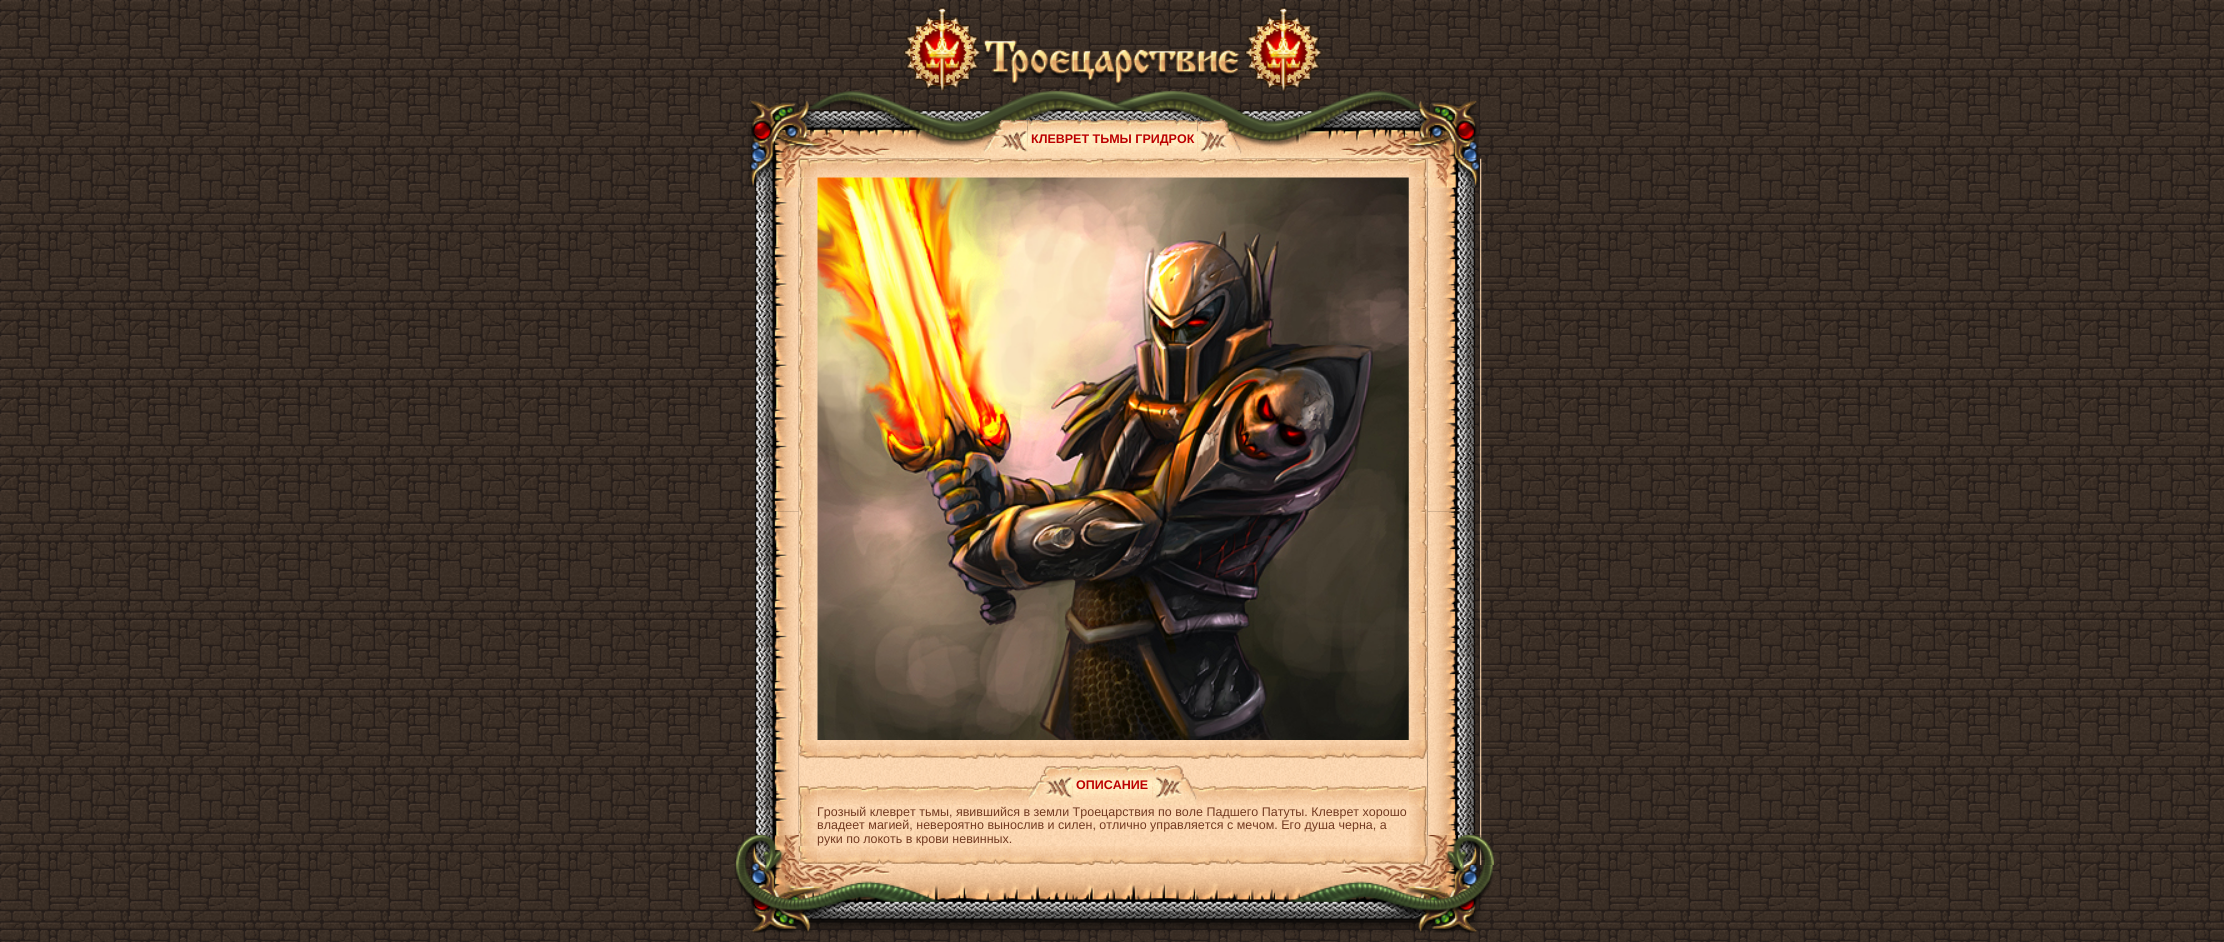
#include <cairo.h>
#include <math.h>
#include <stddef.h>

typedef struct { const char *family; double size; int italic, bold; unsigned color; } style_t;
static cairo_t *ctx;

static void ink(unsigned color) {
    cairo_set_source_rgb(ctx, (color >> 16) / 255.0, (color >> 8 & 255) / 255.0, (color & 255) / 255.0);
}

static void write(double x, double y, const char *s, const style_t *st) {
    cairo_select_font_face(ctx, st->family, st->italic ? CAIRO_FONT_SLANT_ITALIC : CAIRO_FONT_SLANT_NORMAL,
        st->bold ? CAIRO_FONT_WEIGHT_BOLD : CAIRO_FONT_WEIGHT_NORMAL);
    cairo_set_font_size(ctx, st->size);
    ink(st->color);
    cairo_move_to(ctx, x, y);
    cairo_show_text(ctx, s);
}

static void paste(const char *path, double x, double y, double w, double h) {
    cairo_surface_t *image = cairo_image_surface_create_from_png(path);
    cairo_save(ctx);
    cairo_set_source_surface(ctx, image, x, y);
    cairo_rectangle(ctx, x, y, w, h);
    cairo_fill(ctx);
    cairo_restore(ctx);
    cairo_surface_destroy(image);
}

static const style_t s1 = {"Liberation Sans", 12.5, 0, 1, 0xbc0000};
static const style_t s2 = {"Liberation Sans", 12.5, 0, 0, 0x723920};

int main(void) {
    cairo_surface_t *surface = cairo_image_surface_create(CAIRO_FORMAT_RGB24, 2224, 942);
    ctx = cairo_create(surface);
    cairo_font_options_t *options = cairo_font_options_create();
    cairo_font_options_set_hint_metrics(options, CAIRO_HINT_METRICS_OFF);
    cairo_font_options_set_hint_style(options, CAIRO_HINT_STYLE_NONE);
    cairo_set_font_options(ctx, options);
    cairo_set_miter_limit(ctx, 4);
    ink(0xffffff);
    cairo_paint(ctx);
    paste("pic1.png", 0, 0, 2224, 942);
    paste("pic5.png", 748, 91, 731, 68);
    paste("pic2.png", 903, 7, 79, 85);
    paste("pic3.png", 983, 39, 256, 49);
    paste("pic4.png", 1245, 7, 78, 85);
    paste("pic7.png", 1027, 119, 171, 40);
    paste("pic13.png", 754, 158, 45, 354);
    paste("pic14.png", 748, 158, 51, 30);
    paste("pic17.png", 798, 158, 630, 707);
    paste("pic19.png", 817, 158, 592, 20);
    paste("pic6.png", 983, 119, 45, 40);
    write(1031, 143, "КЛЕВРЕТ ТЬМЫ ГРИДРОК", &s1);
    paste("pic8.png", 1197, 118, 45, 41);
    paste("pic21.png", 798, 177, 20, 563);
    paste("pic34.png", 798, 805, 20, 42);
    paste("pic9.png", 754, 511, 45, 354);
    paste("pic10.png", 734, 835, 65, 30);
    paste("pic22.png", 817, 177, 592, 563);
    paste("pic24.png", 1408, 177, 20, 563);
    paste("pic15.png", 1427, 158, 55, 354);
    paste("pic35.png", 817, 805, 592, 41);
    paste("pic36.png", 1408, 805, 20, 42);
    paste("pic11.png", 1427, 511, 55, 354);
    paste("pic12.png", 1427, 835, 67, 30);
    paste("pic16.png", 1427, 158, 53, 30);
    paste("pic18.png", 798, 158, 20, 20);
    paste("pic20.png", 1408, 158, 19, 20);
    paste("pic23.png", 817, 177, 592, 563);
    paste("pic26.png", 817, 740, 592, 19);
    paste("pic25.png", 798, 740, 20, 19);
    paste("pic27.png", 1408, 740, 20, 19);
    paste("pic28.png", 817, 786, 592, 19);
    paste("pic30.png", 1072, 766, 81, 39);
    paste("pic29.png", 1028, 766, 45, 39);
    write(1076, 789, "ОПИСАНИЕ", &s1);
    paste("pic31.png", 1152, 765, 45, 40);
    paste("pic32.png", 798, 786, 20, 19);
    paste("pic33.png", 1408, 786, 19, 19);
    write(817, 816, "Грозный клеврет тьмы, явившийся в земли Троецарствия по воле Падшего Патуты. Клеврет хорошо", &s2);
    write(817, 829, "владеет магией, невероятно вынослив и силен, отлично управляется с мечом. Его душа черна, а", &s2);
    write(817, 843, "руки по локоть в крови невинных.", &s2);
    paste("pic38.png", 817, 846, 592, 19);
    paste("pic37.png", 798, 846, 20, 19);
    paste("pic39.png", 1408, 846, 20, 19);
    paste("pic40.png", 734, 865, 759, 68);
    cairo_surface_write_to_png(surface, "screenshot.png");
    cairo_font_options_destroy(options);
    cairo_destroy(ctx);
    cairo_surface_destroy(surface);
    return 0;
}
